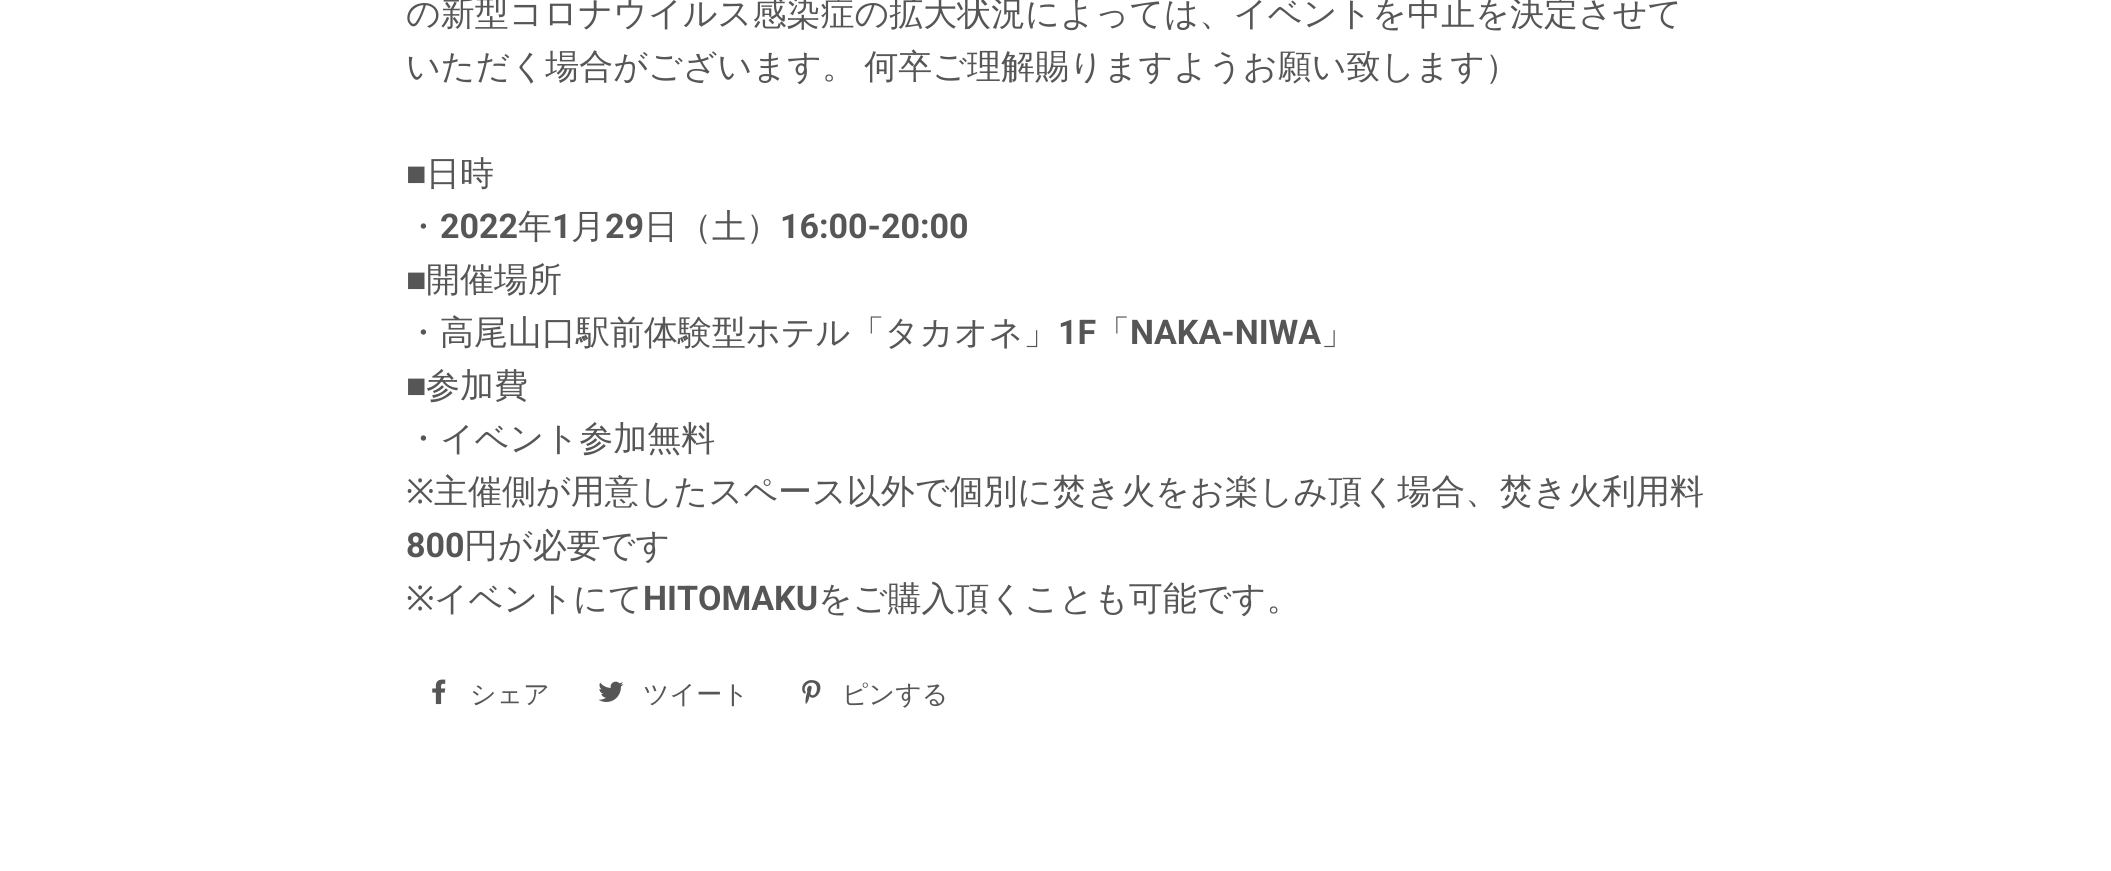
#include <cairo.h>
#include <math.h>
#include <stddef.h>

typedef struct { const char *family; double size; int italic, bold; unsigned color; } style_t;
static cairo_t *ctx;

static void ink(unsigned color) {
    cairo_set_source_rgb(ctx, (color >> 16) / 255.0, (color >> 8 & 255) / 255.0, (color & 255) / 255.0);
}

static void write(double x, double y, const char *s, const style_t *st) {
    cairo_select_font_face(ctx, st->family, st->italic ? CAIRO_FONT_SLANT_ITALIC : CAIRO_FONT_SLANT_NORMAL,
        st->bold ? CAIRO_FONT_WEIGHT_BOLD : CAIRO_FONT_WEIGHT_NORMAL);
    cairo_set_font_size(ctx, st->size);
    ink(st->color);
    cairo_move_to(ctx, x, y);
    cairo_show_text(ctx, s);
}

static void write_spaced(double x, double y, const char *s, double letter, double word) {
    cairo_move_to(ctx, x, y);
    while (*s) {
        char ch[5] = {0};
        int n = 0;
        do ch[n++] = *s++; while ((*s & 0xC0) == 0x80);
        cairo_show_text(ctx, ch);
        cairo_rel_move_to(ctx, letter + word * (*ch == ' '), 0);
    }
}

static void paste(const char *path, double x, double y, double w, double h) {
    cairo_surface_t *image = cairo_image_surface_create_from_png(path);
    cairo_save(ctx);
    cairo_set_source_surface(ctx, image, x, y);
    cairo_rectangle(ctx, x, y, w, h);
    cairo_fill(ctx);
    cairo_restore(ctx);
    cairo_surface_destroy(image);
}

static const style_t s1 = {"WenQuanYi Zen Hei Medium", 34, 0, 0, 0x565656};
static const style_t s2 = {"Liberation Sans", 34, 0, 0, 0x565656};
static const style_t s3 = {"Roboto", 34, 0, 1, 0x565656};
static const style_t s4 = {"Noto Sans", 34, 0, 0, 0x565656};
static const style_t s5 = {"WenQuanYi Zen Hei Medium", 26, 0, 0, 0x565656};

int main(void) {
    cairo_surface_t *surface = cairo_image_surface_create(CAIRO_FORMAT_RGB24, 2111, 871);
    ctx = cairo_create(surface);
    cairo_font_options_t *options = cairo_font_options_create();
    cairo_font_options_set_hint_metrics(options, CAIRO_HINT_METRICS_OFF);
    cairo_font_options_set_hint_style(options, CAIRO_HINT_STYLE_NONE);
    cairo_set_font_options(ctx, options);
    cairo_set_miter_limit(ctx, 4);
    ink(0xffffff);
    cairo_paint(ctx);
    write(406, 25, "の新型コロナウイルス感染症の拡大状況によっては、イベントを中止を決定させて", &s1);
    write_spaced(406, 78, "いただく場合がございます。 何卒ご理解賜りますようお願い致します）", 0, -2);
    write(406, 185, "■", &s2);
    write(426, 185, "日時", &s1);
    write(406, 238, "・", &s1);
    write(440, 238, "2022", &s3);
    write(518, 238, "年", &s1);
    write(552, 238, "1", &s3);
    write(571, 238, "月", &s1);
    write(605, 238, "29", &s3);
    write(644, 238, "日（土）", &s1);
    write(780, 238, "16:00-20:00", &s3);
    write(406, 291, "■", &s2);
    write(426, 291, "開催場所", &s1);
    write(406, 344, "・高尾山口駅前体験型ホテル「タカオネ」", &s1);
    write(1058, 344, "1F", &s3);
    write(1096, 344, "「", &s1);
    write(1130, 344, "NAKA-NIWA", &s3);
    write(1321, 344, "」", &s1);
    write(406, 397, "■", &s2);
    write(426, 397, "参加費", &s1);
    write(406, 450, "・イベント参加無料", &s1);
    write(406, 503, "※", &s4);
    write(434, 503, "主催側が用意したスペース以外で個別に焚き火をお楽しみ頂く場合、焚き火利用料", &s1);
    write(406, 557, "800", &s3);
    write(464, 557, "円が必要です", &s1);
    write(406, 610, "※", &s4);
    write(434, 610, "イベントにて", &s1);
    write(643, 610, "HITOMAKU", &s3);
    write(818, 610, "をご購入頂くことも可能です。", &s1);
    paste("pic1.png", 432, 679, 14, 26);
    write(470, 703, "シェア", &s5);
    paste("pic2.png", 598, 681, 26, 21);
    write(643, 703, "ツイート", &s5);
    paste("pic3.png", 802, 680, 19, 24);
    write(842, 703, "ピンする", &s5);
    cairo_surface_write_to_png(surface, "screenshot.png");
    cairo_font_options_destroy(options);
    cairo_destroy(ctx);
    cairo_surface_destroy(surface);
    return 0;
}
